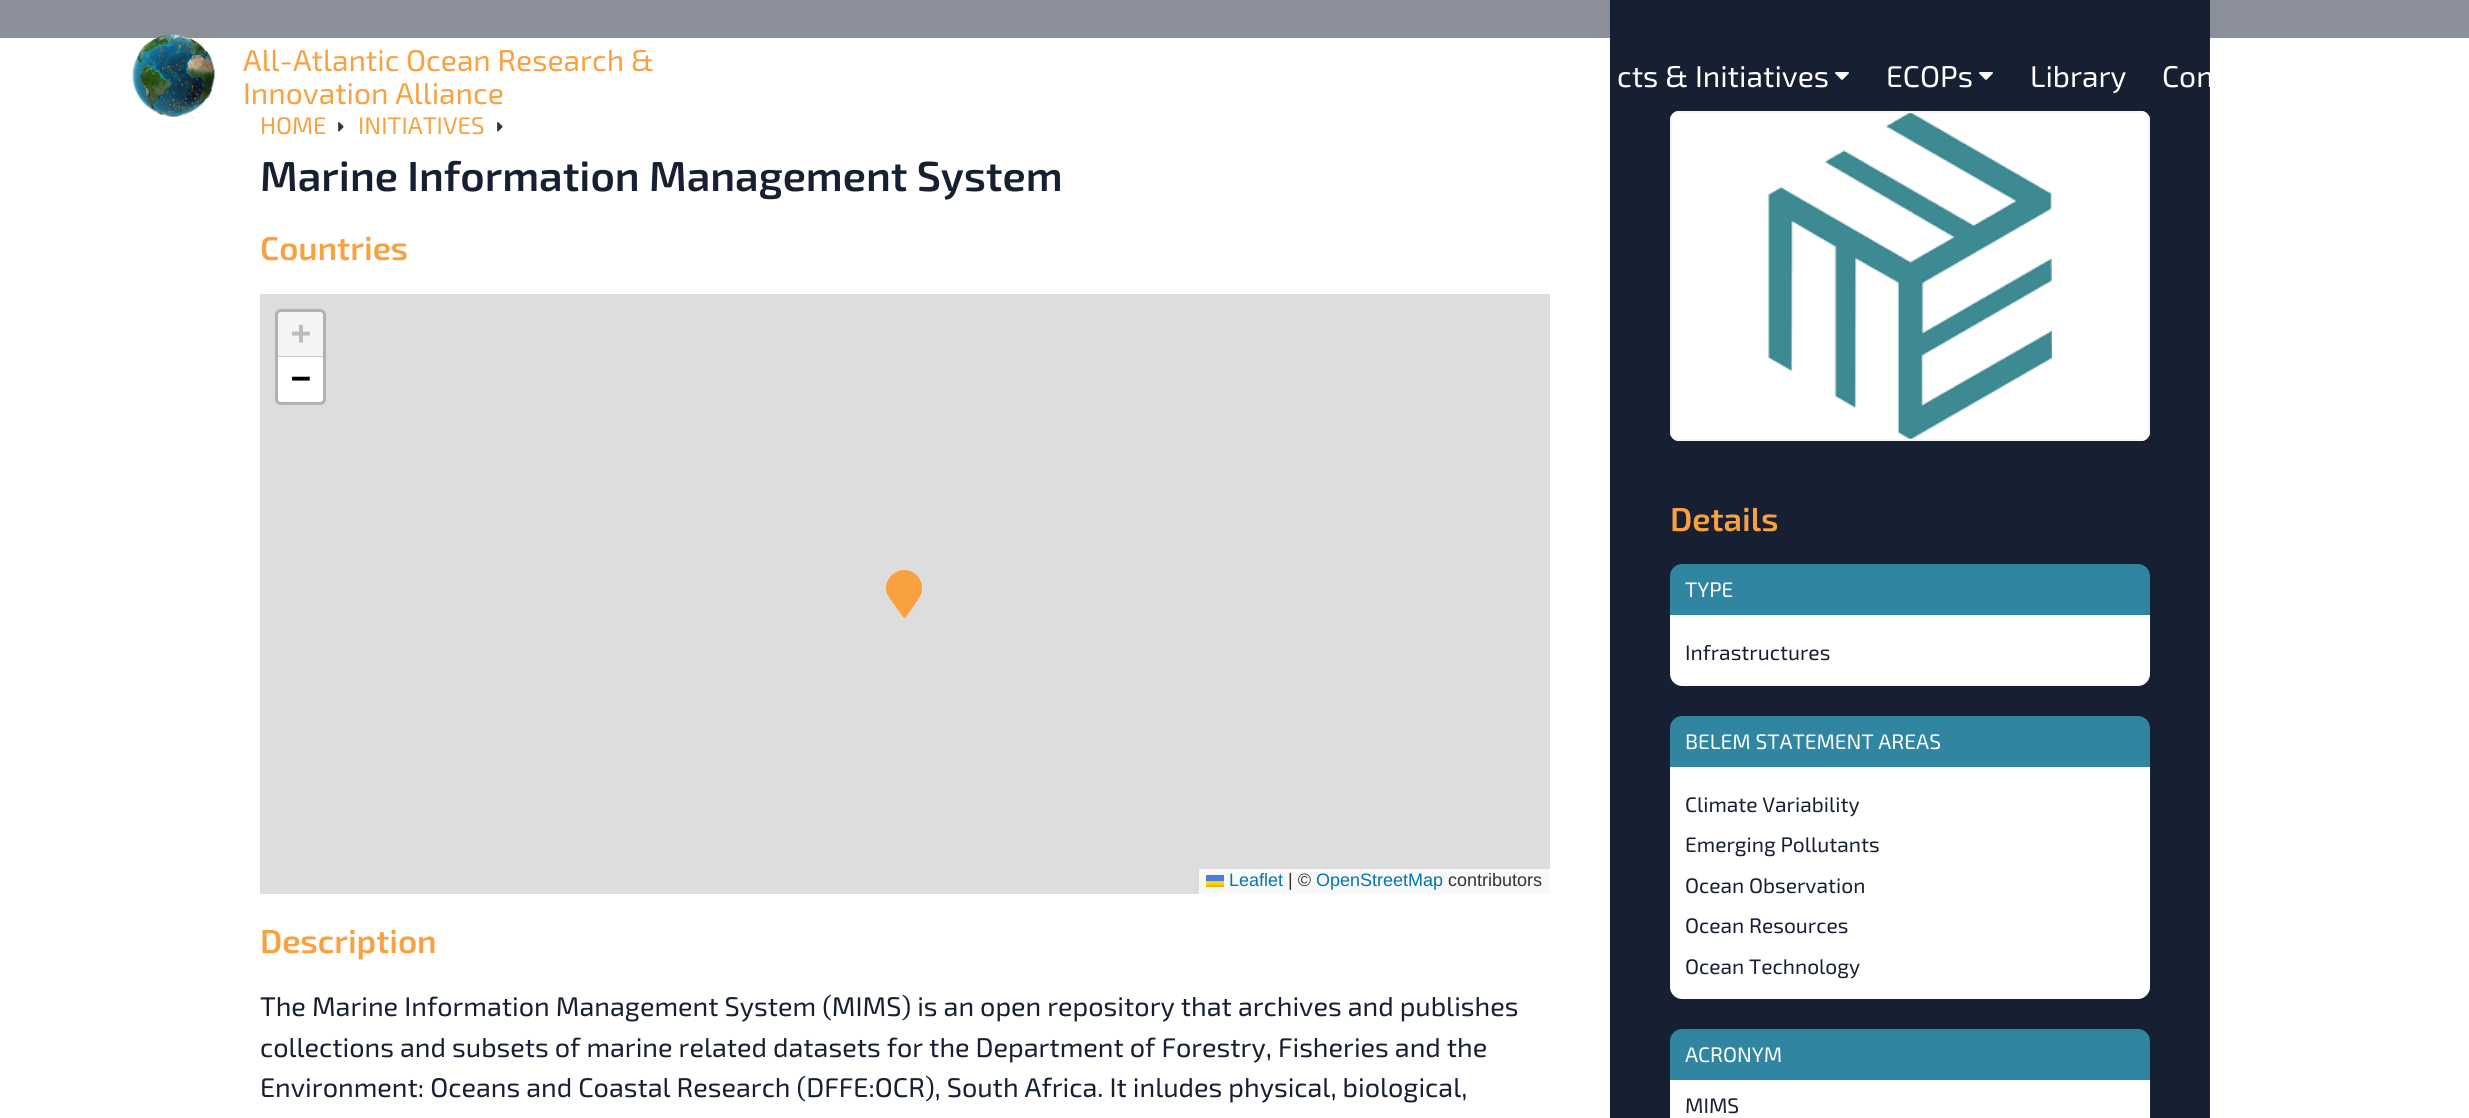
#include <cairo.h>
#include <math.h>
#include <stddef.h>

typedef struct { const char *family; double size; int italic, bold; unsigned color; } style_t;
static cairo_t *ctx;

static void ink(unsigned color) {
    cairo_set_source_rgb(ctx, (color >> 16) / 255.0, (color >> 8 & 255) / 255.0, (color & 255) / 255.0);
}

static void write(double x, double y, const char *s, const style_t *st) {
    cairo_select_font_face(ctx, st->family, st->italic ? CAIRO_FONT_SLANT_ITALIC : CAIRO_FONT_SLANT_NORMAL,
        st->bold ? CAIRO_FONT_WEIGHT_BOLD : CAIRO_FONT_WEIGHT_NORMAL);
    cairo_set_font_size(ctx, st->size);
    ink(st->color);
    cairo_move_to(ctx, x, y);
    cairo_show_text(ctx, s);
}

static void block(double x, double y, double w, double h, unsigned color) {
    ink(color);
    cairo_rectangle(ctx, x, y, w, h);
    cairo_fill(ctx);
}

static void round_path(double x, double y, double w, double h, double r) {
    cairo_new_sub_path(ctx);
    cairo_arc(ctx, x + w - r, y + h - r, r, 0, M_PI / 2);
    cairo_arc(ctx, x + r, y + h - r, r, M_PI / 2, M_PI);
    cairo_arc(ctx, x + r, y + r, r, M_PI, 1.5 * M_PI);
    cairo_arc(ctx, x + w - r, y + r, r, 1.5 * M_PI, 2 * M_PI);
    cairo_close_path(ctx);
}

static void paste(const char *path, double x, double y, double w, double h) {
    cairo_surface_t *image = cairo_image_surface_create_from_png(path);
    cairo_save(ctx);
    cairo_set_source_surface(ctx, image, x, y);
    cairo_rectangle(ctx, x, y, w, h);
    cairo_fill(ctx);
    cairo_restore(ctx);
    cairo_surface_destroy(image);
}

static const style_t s1 = {"Exo 2", 30, 0, 0, 0xf9a140};
static const style_t s2 = {"Exo 2", 30, 0, 0, 0xffffff};
static const style_t s3 = {"Exo 2", 24, 0, 0, 0xf9a140};
static const style_t s4 = {"Exo 2 SemiBold", 42, 0, 0, 0x171f32};
static const style_t s5 = {"Exo 2 SemiBold", 33, 0, 0, 0xf9a140};
static const style_t s6 = {"DejaVu Sans Mono", 33, 0, 1, 0xbbbbbb};
static const style_t s7 = {"DejaVu Sans Mono", 33, 0, 1, 0x000000};
static const style_t s8 = {"Liberation Sans", 18, 0, 0, 0x0078a8};
static const style_t s9 = {"Liberation Sans", 18, 0, 0, 0x333333};
static const style_t s10 = {"Exo 2", 27, 0, 0, 0x171f32};
static const style_t s11 = {"Exo 2", 21, 0, 0, 0xffffff};
static const style_t s12 = {"Exo 2", 21, 0, 0, 0x171f32};

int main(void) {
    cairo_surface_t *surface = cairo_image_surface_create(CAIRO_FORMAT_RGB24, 2469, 1118);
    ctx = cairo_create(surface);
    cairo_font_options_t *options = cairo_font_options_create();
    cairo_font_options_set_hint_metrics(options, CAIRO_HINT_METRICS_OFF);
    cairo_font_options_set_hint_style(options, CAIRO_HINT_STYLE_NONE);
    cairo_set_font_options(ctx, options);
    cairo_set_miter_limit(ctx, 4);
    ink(0xffffff);
    cairo_paint(ctx);
    block(0, 0, 2469, 38, 0x8b8f99);
    paste("pic1.png", 132, 26, 83, 93);
    write(243, 71, "All-Atlantic Ocean Research &", &s1);
    write(243, 104, "Innovation Alliance", &s1);
    block(1610, 0, 600, 1118, 0x171f32);
    write(1617, 87, "cts & Initiatives", &s2);
    paste("pic2.png", 1835, 72, 14, 8);
    write(1886, 87, "ECOPs", &s2);
    paste("pic2.png", 1979, 72, 14, 8);
    write(2030, 87, "Library", &s2);
    write(2162, 87, "Con", &s2);
    write(260, 134, "HOME", &s3);
    paste("pic3.png", 338, 122, 6, 10);
    write(358, 134, "INITIATIVES", &s3);
    paste("pic3.png", 497, 122, 6, 10);
    write(260, 191, "Marine Information Management System", &s4);
    write(260, 260, "Countries", &s5);
    block(260, 294, 1290, 600, 0xdddddd);
    round_path(276.5, 310.5, 48, 93, 4.5);
    ink(0xb1b1b1);
    cairo_set_line_width(ctx, 3);
    cairo_stroke(ctx);
    ink(0xf4f4f4);
    cairo_new_path(ctx);
    cairo_move_to(ctx, 281, 312);
    cairo_line_to(ctx, 320, 312);
    cairo_curve_to(ctx, 321.5, 312, 323, 313.5, 323, 315);
    cairo_line_to(ctx, 323, 357);
    cairo_line_to(ctx, 278, 357);
    cairo_line_to(ctx, 278, 315);
    cairo_curve_to(ctx, 278, 313.5, 279.5, 312, 281, 312);
    cairo_close_path(ctx);
    cairo_fill(ctx);
    block(278, 356, 45, 1, 0xcccccc);
    write(291, 344, "+", &s6);
    ink(0xffffff);
    cairo_new_path(ctx);
    cairo_move_to(ctx, 278, 357);
    cairo_line_to(ctx, 323, 357);
    cairo_line_to(ctx, 323, 399);
    cairo_curve_to(ctx, 323, 400.5, 321.5, 402, 320, 402);
    cairo_line_to(ctx, 281, 402);
    cairo_curve_to(ctx, 279.5, 402, 278, 400.5, 278, 399);
    cairo_close_path(ctx);
    cairo_fill(ctx);
    write(291, 389, "−", &s7);
    block(1199, 869, 351, 25, 0xf8f8f8);
    write(1229, 886, "Leaflet", &s8);
    block(1206, 875, 18, 6, 0x4c7be1);
    block(1206, 881, 18, 4, 0xffd500);
    block(1206, 885, 18, 2, 0xe0bc00);
    write(1288, 886, "| ©", &s9);
    write(1316, 886, "OpenStreetMap", &s8);
    write(1448, 886, "contributors", &s9);
    ink(0xf9a140);
    cairo_new_path(ctx);
    cairo_move_to(ctx, 903, 617);
    cairo_curve_to(ctx, 889, 597, 886, 595, 886, 588);
    cairo_curve_to(ctx, 886, 578, 895, 570, 904, 570);
    cairo_curve_to(ctx, 914, 570, 922, 578, 922, 588);
    cairo_curve_to(ctx, 922, 595, 920, 597, 906, 617);
    cairo_curve_to(ctx, 905, 618, 904, 618, 903, 617);
    cairo_close_path(ctx);
    cairo_fill(ctx);
    write(260, 953, "Description", &s5);
    write(260, 1016, "The Marine Information Management System (MIMS) is an open repository that archives and publishes", &s10);
    write(260, 1057, "collections and subsets of marine related datasets for the Department of Forestry, Fisheries and the", &s10);
    write(260, 1097, "Environment: Oceans and Coastal Research (DFFE:OCR), South Africa. It inludes physical, biological,", &s10);
    ink(0xffffff);
    round_path(1670, 111, 480, 330, 9);
    cairo_fill(ctx);
    paste("pic4.png", 1768, 113, 284, 326);
    round_path(1671, 112, 478, 328, 8);
    ink(0xf6f6f6);
    cairo_set_line_width(ctx, 2);
    cairo_stroke(ctx);
    write(1670, 531, "Details", &s5);
    ink(0x3085a1);
    cairo_new_path(ctx);
    cairo_move_to(ctx, 1682, 564);
    cairo_line_to(ctx, 2138, 564);
    cairo_curve_to(ctx, 2144.5, 564, 2150, 569.5, 2150, 576);
    cairo_line_to(ctx, 2150, 615);
    cairo_line_to(ctx, 1670, 615);
    cairo_line_to(ctx, 1670, 576);
    cairo_curve_to(ctx, 1670, 569.5, 1675.5, 564, 1682, 564);
    cairo_close_path(ctx);
    cairo_fill(ctx);
    write(1685, 597, "TYPE", &s11);
    cairo_new_path(ctx);
    cairo_move_to(ctx, 1670, 615);
    cairo_line_to(ctx, 2150, 615);
    cairo_line_to(ctx, 2150, 674);
    cairo_curve_to(ctx, 2150, 680.5, 2144.5, 686, 2138, 686);
    cairo_line_to(ctx, 1682, 686);
    cairo_curve_to(ctx, 1675.5, 686, 1670, 680.5, 1670, 674);
    cairo_close_path(ctx);
    cairo_fill(ctx);
    write(1685, 660, "Infrastructures", &s12);
    ink(0x3085a1);
    cairo_new_path(ctx);
    cairo_move_to(ctx, 1682, 716);
    cairo_line_to(ctx, 2138, 716);
    cairo_curve_to(ctx, 2144.5, 716, 2150, 721.5, 2150, 728);
    cairo_line_to(ctx, 2150, 767);
    cairo_line_to(ctx, 1670, 767);
    cairo_line_to(ctx, 1670, 728);
    cairo_curve_to(ctx, 1670, 721.5, 1675.5, 716, 1682, 716);
    cairo_close_path(ctx);
    cairo_fill(ctx);
    write(1685, 749, "BELEM STATEMENT AREAS", &s11);
    cairo_new_path(ctx);
    cairo_move_to(ctx, 1670, 767);
    cairo_line_to(ctx, 2150, 767);
    cairo_line_to(ctx, 2150, 987);
    cairo_curve_to(ctx, 2150, 993.5, 2144.5, 999, 2138, 999);
    cairo_line_to(ctx, 1682, 999);
    cairo_curve_to(ctx, 1675.5, 999, 1670, 993.5, 1670, 987);
    cairo_close_path(ctx);
    cairo_fill(ctx);
    write(1685, 812, "Climate Variability", &s12);
    write(1685, 852, "Emerging Pollutants", &s12);
    write(1685, 893, "Ocean Observation", &s12);
    write(1685, 933, "Ocean Resources", &s12);
    write(1685, 974, "Ocean Technology", &s12);
    ink(0x3085a1);
    cairo_new_path(ctx);
    cairo_move_to(ctx, 1682, 1029);
    cairo_line_to(ctx, 2138, 1029);
    cairo_curve_to(ctx, 2144.5, 1029, 2150, 1034.5, 2150, 1041);
    cairo_line_to(ctx, 2150, 1080);
    cairo_line_to(ctx, 1670, 1080);
    cairo_line_to(ctx, 1670, 1041);
    cairo_curve_to(ctx, 1670, 1034.5, 1675.5, 1029, 1682, 1029);
    cairo_close_path(ctx);
    cairo_fill(ctx);
    write(1685, 1062, "ACRONYM", &s11);
    block(1670, 1080, 480, 38, 0xffffff);
    write(1685, 1113, "MIMS", &s12);
    cairo_surface_write_to_png(surface, "screenshot.png");
    cairo_font_options_destroy(options);
    cairo_destroy(ctx);
    cairo_surface_destroy(surface);
    return 0;
}
